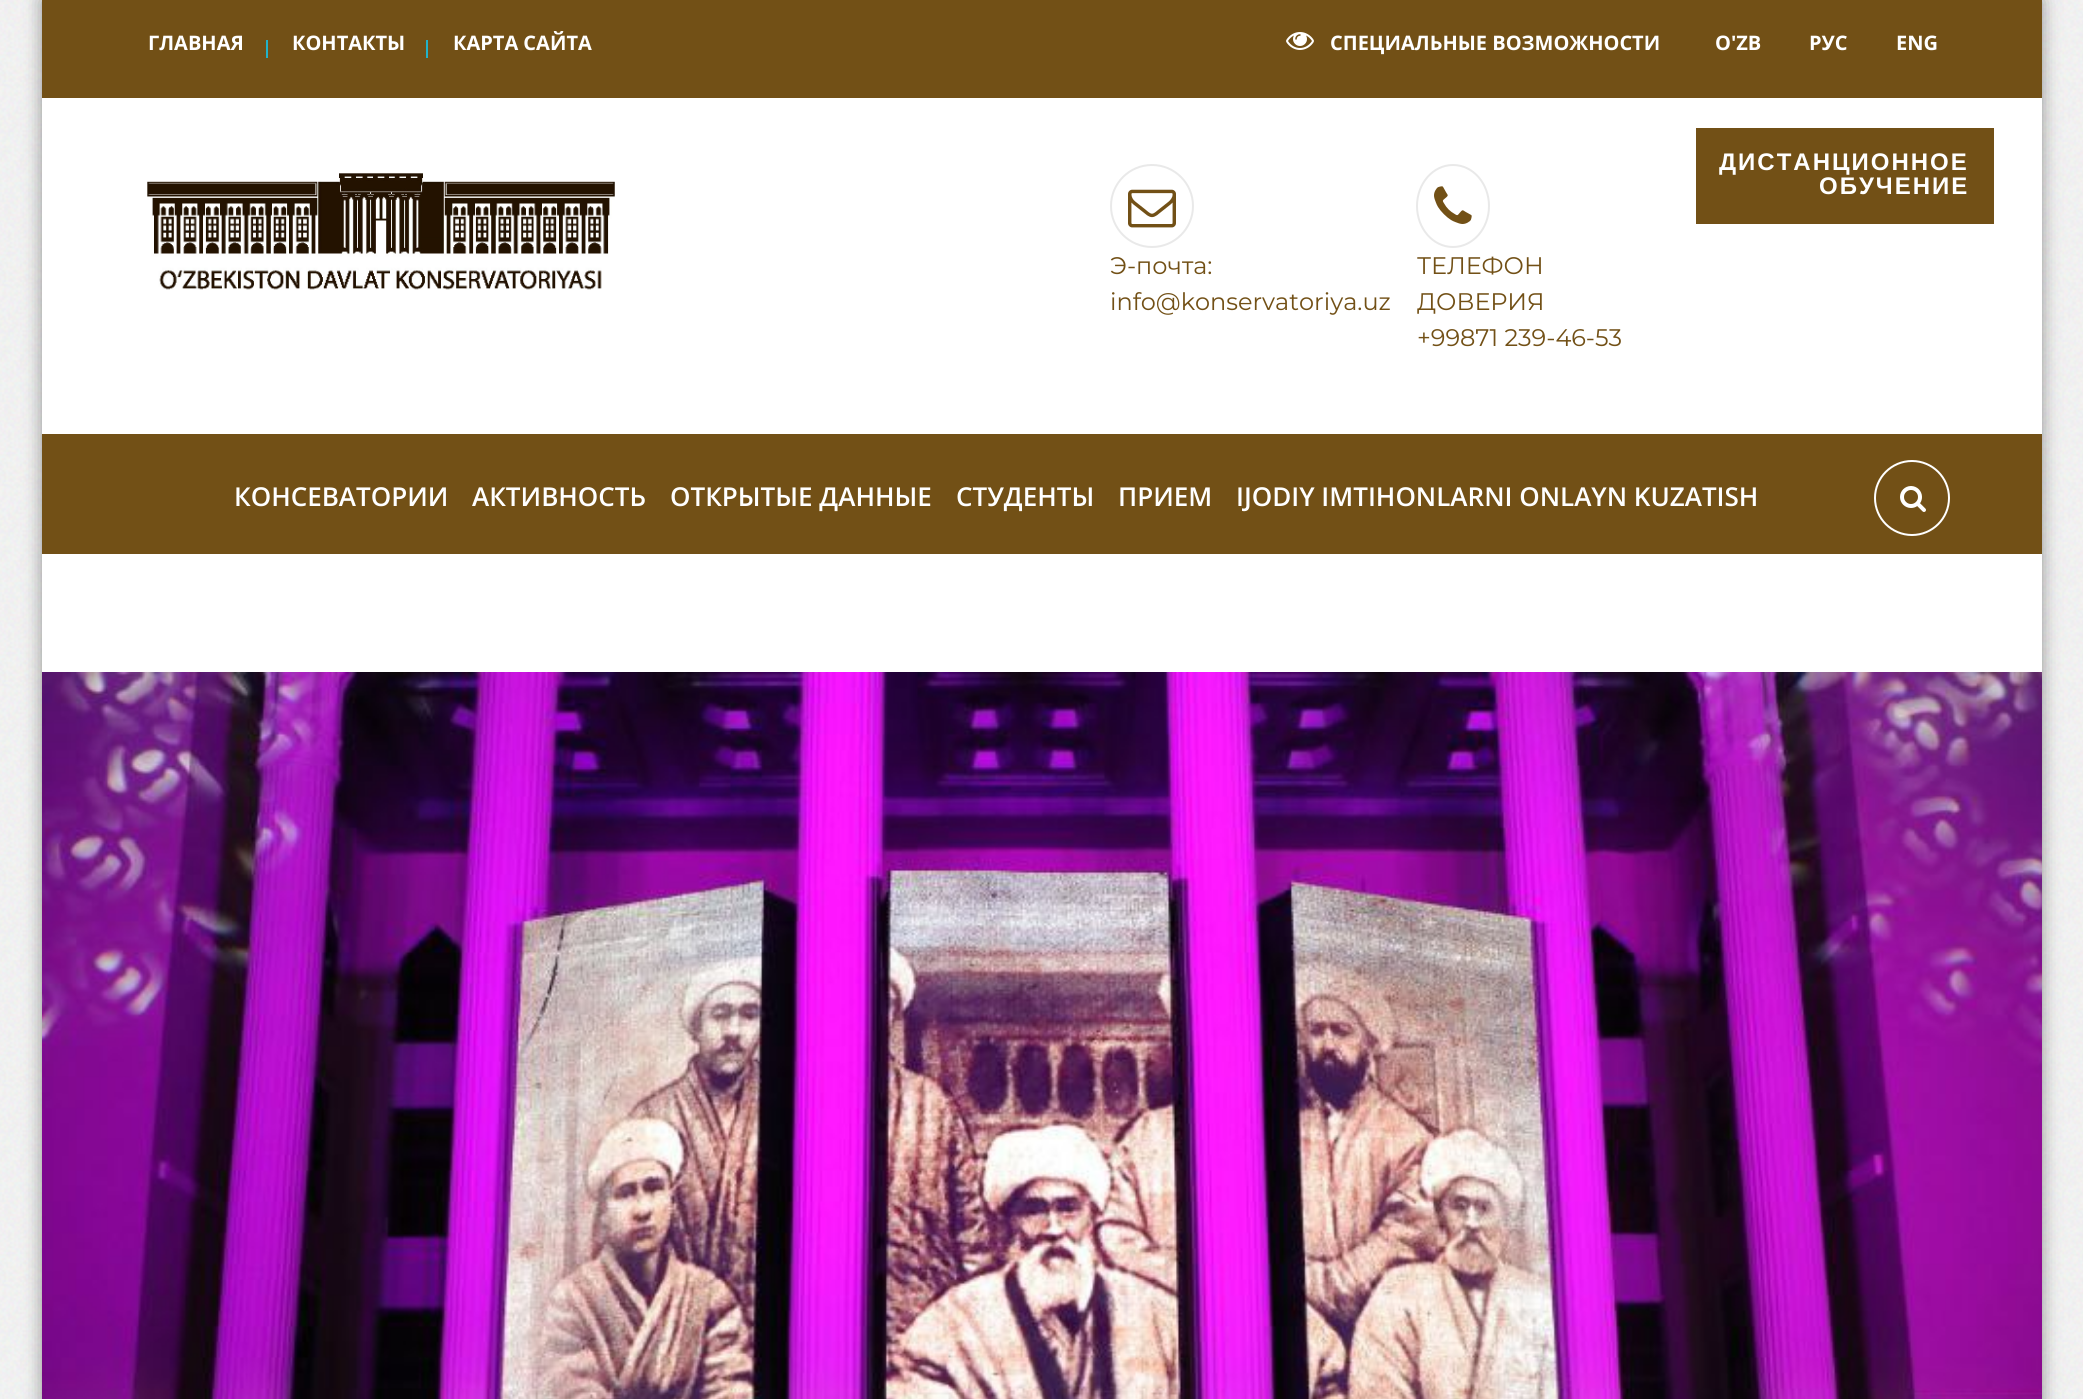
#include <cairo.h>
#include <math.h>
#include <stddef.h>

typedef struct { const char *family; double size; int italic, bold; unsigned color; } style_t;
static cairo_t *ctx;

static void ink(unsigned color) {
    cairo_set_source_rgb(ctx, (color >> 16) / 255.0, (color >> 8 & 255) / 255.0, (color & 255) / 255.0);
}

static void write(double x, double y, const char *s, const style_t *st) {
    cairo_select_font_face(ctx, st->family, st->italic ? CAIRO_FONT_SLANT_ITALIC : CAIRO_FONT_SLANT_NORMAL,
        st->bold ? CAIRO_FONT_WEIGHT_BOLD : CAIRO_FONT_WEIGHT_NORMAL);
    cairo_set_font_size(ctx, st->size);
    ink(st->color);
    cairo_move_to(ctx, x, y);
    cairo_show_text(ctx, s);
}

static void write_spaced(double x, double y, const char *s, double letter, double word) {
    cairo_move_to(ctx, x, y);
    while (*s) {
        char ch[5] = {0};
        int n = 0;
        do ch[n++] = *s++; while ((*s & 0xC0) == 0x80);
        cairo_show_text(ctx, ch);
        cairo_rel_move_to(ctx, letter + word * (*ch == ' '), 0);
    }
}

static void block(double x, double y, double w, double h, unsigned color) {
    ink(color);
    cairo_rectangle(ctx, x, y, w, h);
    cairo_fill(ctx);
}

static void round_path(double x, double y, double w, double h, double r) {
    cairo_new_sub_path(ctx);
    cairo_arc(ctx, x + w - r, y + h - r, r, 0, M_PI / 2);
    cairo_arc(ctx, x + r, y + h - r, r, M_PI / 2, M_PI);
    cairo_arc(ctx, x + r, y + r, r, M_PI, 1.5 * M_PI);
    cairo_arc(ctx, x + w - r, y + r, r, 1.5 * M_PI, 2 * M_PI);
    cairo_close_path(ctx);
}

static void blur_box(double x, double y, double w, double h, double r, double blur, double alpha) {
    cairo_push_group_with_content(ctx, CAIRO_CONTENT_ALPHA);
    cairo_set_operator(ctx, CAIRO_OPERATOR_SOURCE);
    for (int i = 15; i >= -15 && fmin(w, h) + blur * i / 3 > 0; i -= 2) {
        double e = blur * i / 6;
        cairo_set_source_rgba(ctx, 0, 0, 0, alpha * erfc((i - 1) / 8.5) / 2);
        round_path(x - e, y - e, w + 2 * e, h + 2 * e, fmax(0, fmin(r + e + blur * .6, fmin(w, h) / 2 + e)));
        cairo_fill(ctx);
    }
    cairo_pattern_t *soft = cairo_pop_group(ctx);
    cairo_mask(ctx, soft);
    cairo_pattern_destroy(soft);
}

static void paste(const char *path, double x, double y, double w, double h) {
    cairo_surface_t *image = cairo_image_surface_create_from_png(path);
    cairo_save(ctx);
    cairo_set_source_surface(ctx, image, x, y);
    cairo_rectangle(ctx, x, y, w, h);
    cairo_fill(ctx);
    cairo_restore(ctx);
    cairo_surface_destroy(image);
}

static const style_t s1 = {"Open Sans", 20, 0, 1, 0xffffff};
static const style_t s2 = {"Montserrat", 24, 0, 0, 0x725016};
static const style_t s3 = {"Open Sans SemiBold", 26, 0, 0, 0xffffff};

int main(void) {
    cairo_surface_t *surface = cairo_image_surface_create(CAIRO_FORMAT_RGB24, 2083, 1399);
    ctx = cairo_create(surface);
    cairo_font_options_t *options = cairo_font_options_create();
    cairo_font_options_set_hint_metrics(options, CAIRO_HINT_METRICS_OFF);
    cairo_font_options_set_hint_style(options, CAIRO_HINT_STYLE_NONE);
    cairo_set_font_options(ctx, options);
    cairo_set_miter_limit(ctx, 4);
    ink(0xffffff);
    cairo_paint(ctx);
    paste("pic1.png", 0, 0, 2083, 1399);
    ink(0x000000);
    blur_box(42, 0, 2000, 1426, 0, 9, 0.4);
    block(42, 98, 2000, 574, 0xffffff);
    block(42, 0, 2000, 98, 0x725016);
    write(148, 50, "ГЛАВНАЯ", &s1);
    block(266, 40, 2, 18, 0x22b2c8);
    write(292, 50, "КОНТАКТЫ", &s1);
    block(426, 40, 2, 18, 0x22b2c8);
    write(453, 50, "КАРТА САЙТА", &s1);
    paste("pic2.png", 1286, 32, 28, 18);
    write(1330, 50, "СПЕЦИАЛЬНЫЕ ВОЗМОЖНОСТИ", &s1);
    write(1715, 50, "O'ZB", &s1);
    write(1809, 50, "РУС", &s1);
    write(1896, 50, "ENG", &s1);
    paste("pic3.png", 147, 173, 468, 117);
    block(1696, 128, 298, 96, 0x725016);
    cairo_select_font_face(ctx, "Liberation Sans", CAIRO_FONT_SLANT_NORMAL, CAIRO_FONT_WEIGHT_BOLD);
    cairo_set_font_size(ctx, 24);
    ink(0xffffff);
    write_spaced(1719, 170, "ДИСТАНЦИОННОЕ", 2, 0);
    write_spaced(1819, 194, "ОБУЧЕНИЕ", 2, 0);
    cairo_new_path(ctx);
    cairo_arc(ctx, 1152, 206, 41, 0, 2 * M_PI);
    ink(0xe9e9e9);
    cairo_stroke(ctx);
    paste("pic4.png", 1128, 189, 48, 39);
    write(1110, 274, "Э-почта:", &s2);
    write(1110, 310, "info@konservatoriya.uz", &s2);
    cairo_new_path(ctx);
    cairo_move_to(ctx, 1453, 165);
    cairo_curve_to(ctx, 1473, 165, 1489, 183.5, 1489, 206);
    cairo_curve_to(ctx, 1489, 228.5, 1473, 247, 1453, 247);
    cairo_curve_to(ctx, 1433, 247, 1417, 228.5, 1417, 206);
    cairo_curve_to(ctx, 1417, 183.5, 1433, 165, 1453, 165);
    cairo_close_path(ctx);
    ink(0xe9e9e9);
    cairo_stroke(ctx);
    paste("pic5.png", 1434, 186, 38, 38);
    write(1417, 274, "ТЕЛЕФОН", &s2);
    write(1417, 310, "ДОВЕРИЯ", &s2);
    write(1417, 346, "+99871 239-46-53", &s2);
    block(42, 434, 2000, 120, 0x725016);
    write(234, 506, "КОНСЕВАТОРИИ", &s3);
    write(472, 506, "АКТИВНОСТЬ", &s3);
    write(670, 506, "ОТКРЫТЫЕ ДАННЫЕ", &s3);
    write(956, 506, "СТУДЕНТЫ", &s3);
    write(1118, 506, "ПРИЕМ", &s3);
    write(1236, 506, "IJODIY IMTIHONLARNI ONLAYN KUZATISH", &s3);
    cairo_new_path(ctx);
    cairo_arc(ctx, 1912, 498, 37, 0, 2 * M_PI);
    cairo_stroke(ctx);
    paste("pic6.png", 1900, 486, 26, 26);
    paste("pic7.png", 42, 672, 2000, 727);
    cairo_surface_write_to_png(surface, "screenshot.png");
    cairo_font_options_destroy(options);
    cairo_destroy(ctx);
    cairo_surface_destroy(surface);
    return 0;
}
